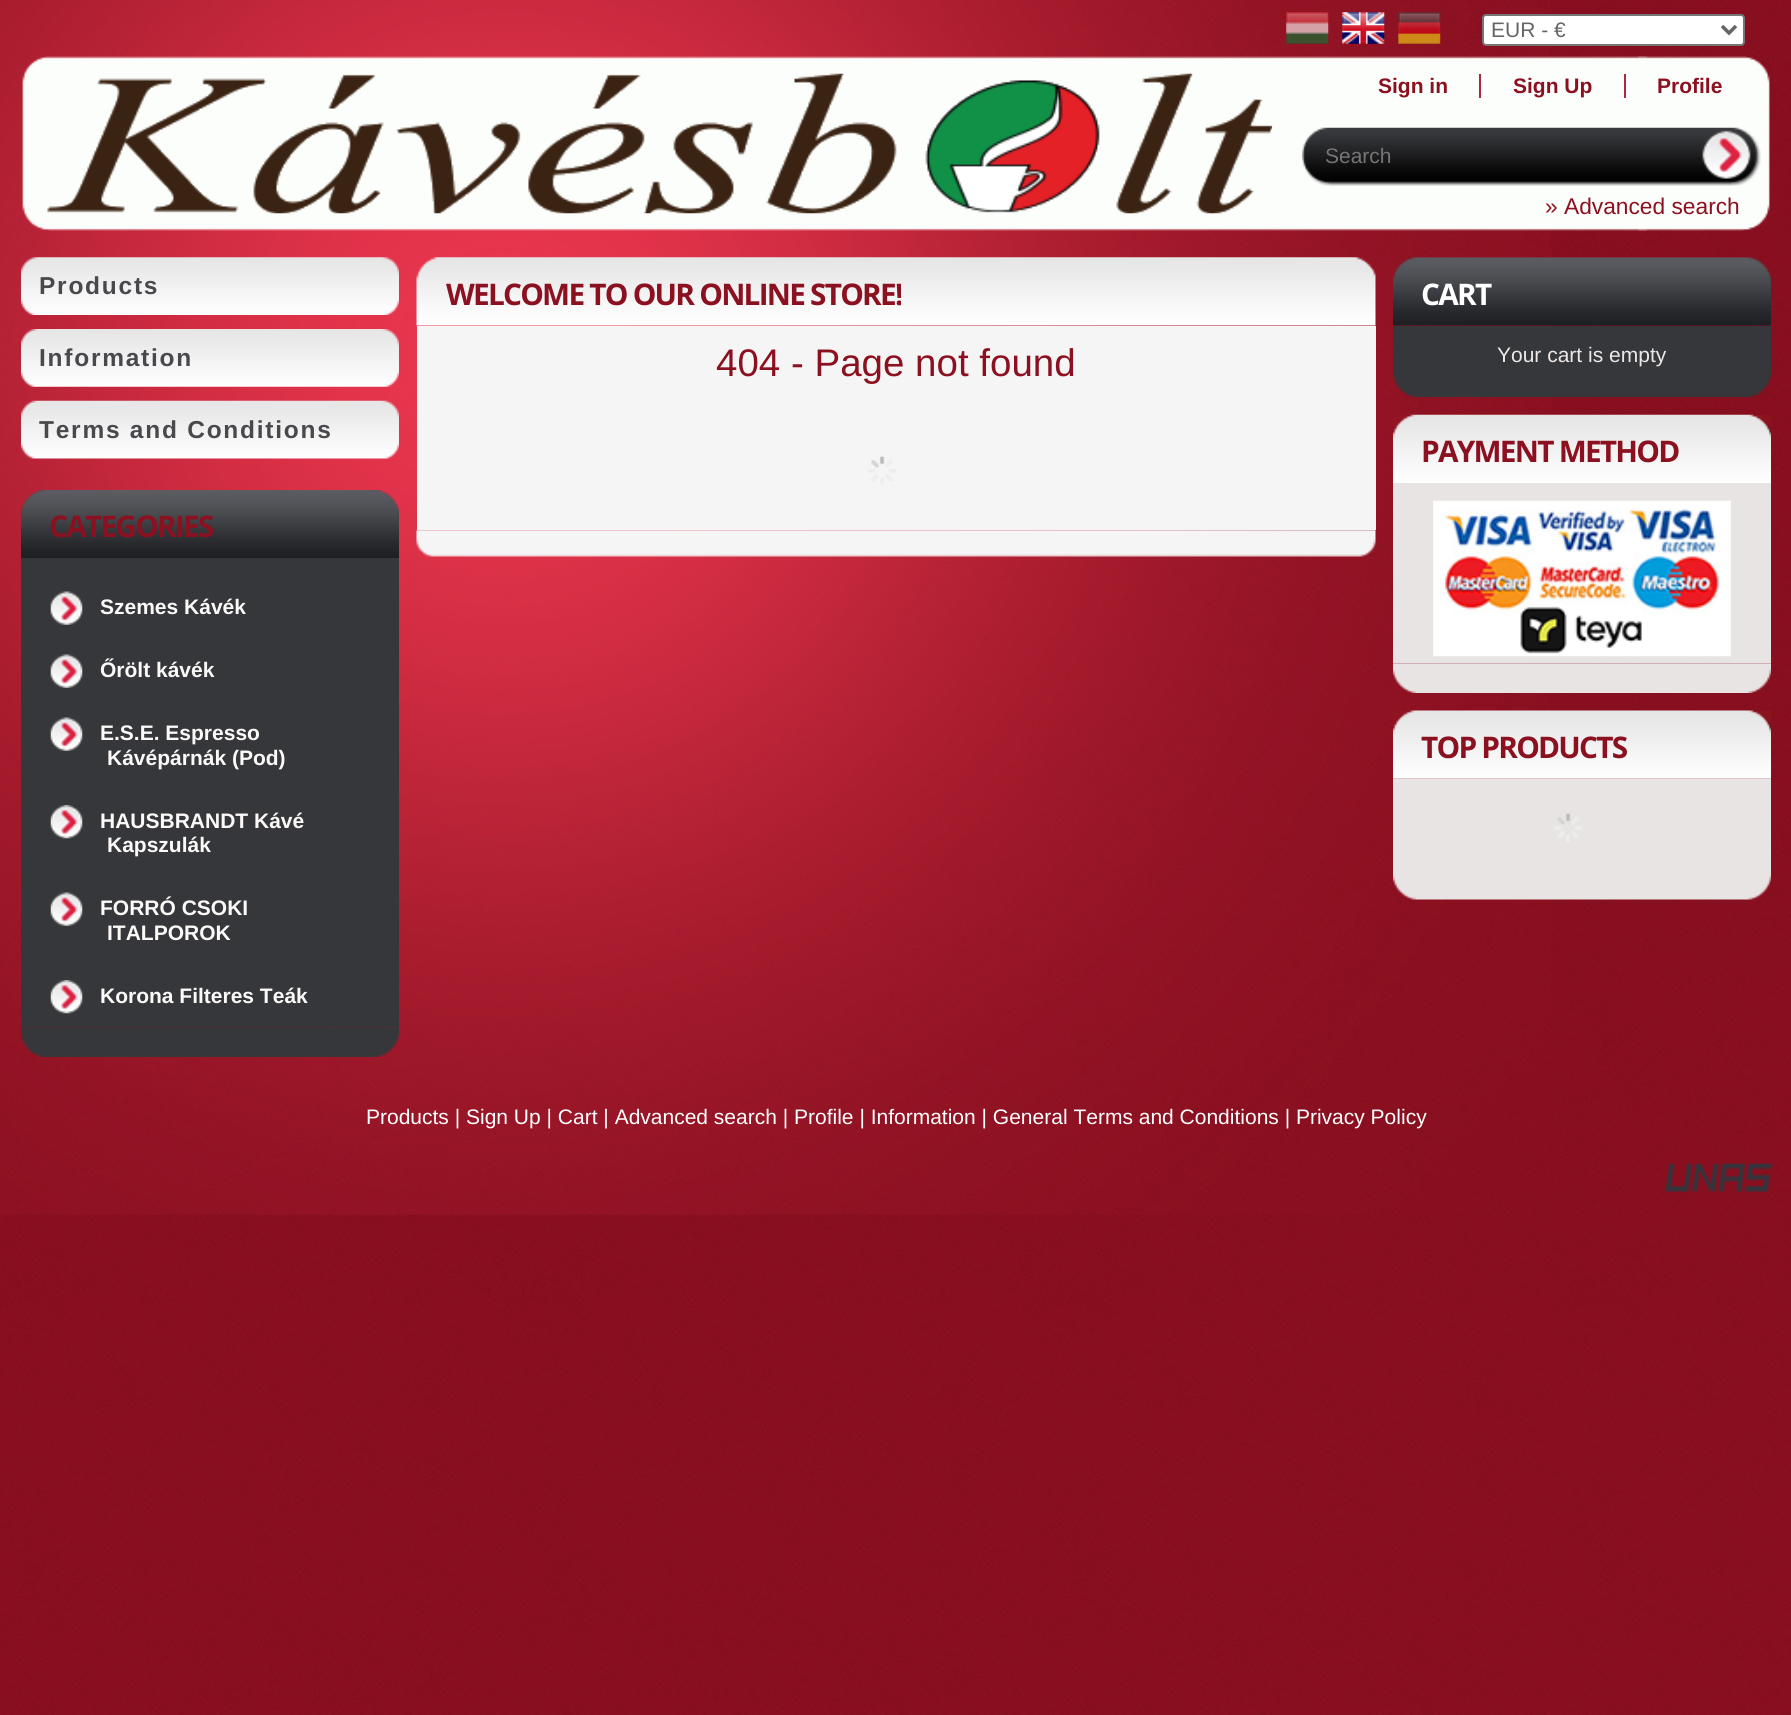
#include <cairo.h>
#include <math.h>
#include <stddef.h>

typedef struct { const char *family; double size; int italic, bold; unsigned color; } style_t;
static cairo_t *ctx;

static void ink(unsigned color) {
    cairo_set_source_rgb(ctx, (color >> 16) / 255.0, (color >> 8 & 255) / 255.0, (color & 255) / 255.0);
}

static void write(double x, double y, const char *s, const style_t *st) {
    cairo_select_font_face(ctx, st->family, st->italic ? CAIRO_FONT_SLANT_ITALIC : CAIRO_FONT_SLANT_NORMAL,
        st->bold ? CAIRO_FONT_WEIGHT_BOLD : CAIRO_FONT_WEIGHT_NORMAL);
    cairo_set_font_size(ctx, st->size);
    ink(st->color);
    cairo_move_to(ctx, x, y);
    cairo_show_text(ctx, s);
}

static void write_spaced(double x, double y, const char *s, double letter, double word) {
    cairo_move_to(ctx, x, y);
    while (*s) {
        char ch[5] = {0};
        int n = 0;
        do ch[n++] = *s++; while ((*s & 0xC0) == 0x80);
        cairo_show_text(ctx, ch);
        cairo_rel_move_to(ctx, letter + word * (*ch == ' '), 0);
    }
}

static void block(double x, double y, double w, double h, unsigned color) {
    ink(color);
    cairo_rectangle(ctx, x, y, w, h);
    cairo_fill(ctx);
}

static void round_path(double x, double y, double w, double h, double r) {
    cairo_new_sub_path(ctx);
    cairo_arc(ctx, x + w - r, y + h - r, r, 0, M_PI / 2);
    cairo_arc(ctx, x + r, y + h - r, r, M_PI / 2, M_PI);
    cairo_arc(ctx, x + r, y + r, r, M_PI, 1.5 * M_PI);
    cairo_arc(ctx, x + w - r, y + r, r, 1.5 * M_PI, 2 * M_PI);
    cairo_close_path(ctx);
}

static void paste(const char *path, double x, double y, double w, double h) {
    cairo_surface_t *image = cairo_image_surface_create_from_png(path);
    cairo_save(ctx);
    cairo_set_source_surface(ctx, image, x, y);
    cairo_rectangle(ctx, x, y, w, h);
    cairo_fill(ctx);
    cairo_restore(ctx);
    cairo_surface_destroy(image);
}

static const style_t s1 = {"Liberation Sans", 21, 0, 0, 0x666464};
static const style_t s2 = {"Liberation Sans", 21, 0, 1, 0x8b1020};
static const style_t s3 = {"Liberation Sans", 21, 0, 0, 0x757575};
static const style_t s4 = {"Liberation Sans", 22.75, 0, 0, 0x8b1020};
static const style_t s5 = {"Liberation Sans", 21, 0, 1, 0xfcf9f9};
static const style_t s6 = {"Liberation Sans", 38.5, 0, 0, 0x8b1020};
static const style_t s7 = {"Liberation Sans", 21, 0, 0, 0xece8e8};
static const style_t s8 = {"Liberation Sans", 21, 0, 0, 0xffffff};

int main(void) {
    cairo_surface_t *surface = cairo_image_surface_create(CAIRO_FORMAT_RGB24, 1791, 1715);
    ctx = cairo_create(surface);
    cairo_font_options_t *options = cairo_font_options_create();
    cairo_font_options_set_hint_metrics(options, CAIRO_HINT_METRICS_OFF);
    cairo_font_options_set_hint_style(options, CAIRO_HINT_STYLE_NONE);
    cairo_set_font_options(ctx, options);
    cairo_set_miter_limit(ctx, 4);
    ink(0xffffff);
    cairo_paint(ctx);
    paste("pic1.png", 0, 0, 1791, 1715);
    paste("pic2.png", 0, 0, 1551, 1215);
    paste("pic3.png", 1286, 12, 43, 32);
    paste("pic4.png", 1342, 12, 43, 32);
    paste("pic5.png", 1398, 12, 43, 32);
    ink(0xffffff);
    round_path(1483, 15, 261, 30, 3);
    cairo_fill_preserve(ctx);
    ink(0x767676);
    cairo_stroke(ctx);
    cairo_new_path(ctx);
    cairo_move_to(ctx, 1722, 26);
    cairo_line_to(ctx, 1729, 33);
    cairo_line_to(ctx, 1736, 26);
    ink(0x666464);
    cairo_set_line_width(ctx, 3.5);
    cairo_stroke(ctx);
    write(1491, 37, "EUR - €", &s1);
    paste("pic6.png", 22, 56, 1748, 175);
    paste("pic7.png", 47, 73, 1226, 141);
    write(1378, 93, "Sign in", &s2);
    block(1479, 74, 2, 24, 0xaa293a);
    write(1513, 93, "Sign Up", &s2);
    block(1624, 74, 2, 24, 0xaa293a);
    write(1657, 93, "Profile", &s2);
    paste("pic8.png", 1302, 127, 459, 59);
    write(1325, 163, "Search", &s3);
    write(1545, 214, "» Advanced search", &s4);
    paste("pic9.png", 21, 257, 378, 58);
    cairo_select_font_face(ctx, "Liberation Sans", CAIRO_FONT_SLANT_NORMAL, CAIRO_FONT_WEIGHT_BOLD);
    cairo_set_font_size(ctx, 24.5);
    ink(0x48494d);
    write_spaced(39, 294, "Products", 1.75, 0);
    paste("pic10.png", 21, 329, 378, 58);
    write_spaced(39, 366, "Information", 1.75, 0);
    paste("pic11.png", 21, 400, 378, 59);
    write_spaced(39, 438, "Terms and Conditions", 1.75, 0);
    paste("pic12.png", 21, 490, 378, 68);
    cairo_select_font_face(ctx, "Open Sans", CAIRO_FONT_SLANT_NORMAL, CAIRO_FONT_WEIGHT_BOLD);
    cairo_set_font_size(ctx, 29.75);
    ink(0x8b1020);
    write_spaced(49, 537, "CATEGORIES", -1.75, 0);
    block(21, 558, 378, 469, 0x36373a);
    paste("pic13.png", 50, 591, 33, 34);
    write(100, 614, "Szemes Kávék", &s5);
    paste("pic13.png", 50, 654, 33, 34);
    write(100, 677, "Őrölt kávék", &s5);
    paste("pic13.png", 50, 717, 33, 34);
    write(100, 740, "E.S.E. Espresso", &s5);
    write(107, 765, "Kávépárnák (Pod)", &s5);
    paste("pic14.png", 50, 805, 33, 34);
    write(100, 828, "HAUSBRANDT Kávé", &s5);
    write(107, 852, "Kapszulák", &s5);
    paste("pic13.png", 50, 892, 33, 34);
    write(100, 915, "FORRÓ CSOKI", &s5);
    write(107, 940, "ITALPOROK", &s5);
    paste("pic14.png", 50, 980, 33, 34);
    write(100, 1003, "Korona Filteres Teák", &s5);
    paste("pic15.png", 21, 1027, 378, 30);
    paste("pic16.png", 416, 257, 960, 69);
    cairo_save(ctx);
    cairo_rectangle(ctx, 417, 257, 484, 63);
    cairo_clip(ctx);
    cairo_select_font_face(ctx, "Open Sans", CAIRO_FONT_SLANT_NORMAL, CAIRO_FONT_WEIGHT_BOLD);
    cairo_set_font_size(ctx, 29.75);
    ink(0x8b1020);
    write_spaced(446, 305, "WELCOME TO OUR ONLINE STORE!", -1.75, 0);
    cairo_restore(ctx);
    block(417, 326, 959, 204, 0xf6f5f5);
    write(716, 376, "404 - Page not found", &s6);
    paste("pic17.png", 868, 456, 28, 29);
    paste("pic18.png", 416, 530, 960, 27);
    paste("pic19.png", 1393, 257, 378, 69);
    cairo_select_font_face(ctx, "Open Sans", CAIRO_FONT_SLANT_NORMAL, CAIRO_FONT_WEIGHT_BOLD);
    cairo_set_font_size(ctx, 29.75);
    ink(0xffffff);
    write_spaced(1421, 305, "CART", -1.75, 0);
    block(1393, 326, 378, 42, 0x36373a);
    write(1497, 362, "Your cart is empty", &s7);
    paste("pic20.png", 1393, 368, 378, 30);
    paste("pic21.png", 1393, 414, 378, 69);
    cairo_select_font_face(ctx, "Open Sans", CAIRO_FONT_SLANT_NORMAL, CAIRO_FONT_WEIGHT_BOLD);
    cairo_set_font_size(ctx, 29.75);
    ink(0x8b1020);
    write_spaced(1421, 462, "PAYMENT METHOD", -1.75, 0);
    block(1393, 483, 378, 180, 0xe9e4e4);
    paste("pic22.png", 1433, 500, 298, 157);
    paste("pic23.png", 1393, 663, 378, 30);
    paste("pic24.png", 1393, 710, 378, 69);
    ink(0x8b1020);
    write_spaced(1421, 758, "TOP PRODUCTS", -1.75, 0);
    block(1393, 779, 378, 91, 0xe9e4e4);
    paste("pic25.png", 1554, 813, 28, 29);
    paste("pic26.png", 1393, 870, 378, 30);
    write(366, 1124, "Products | Sign Up | Cart | Advanced search | Profile | Information | General Terms and Conditions | Privacy Policy", &s8);
    paste("pic27.png", 1666, 1163, 105, 29);
    cairo_surface_write_to_png(surface, "screenshot.png");
    cairo_font_options_destroy(options);
    cairo_destroy(ctx);
    cairo_surface_destroy(surface);
    return 0;
}
